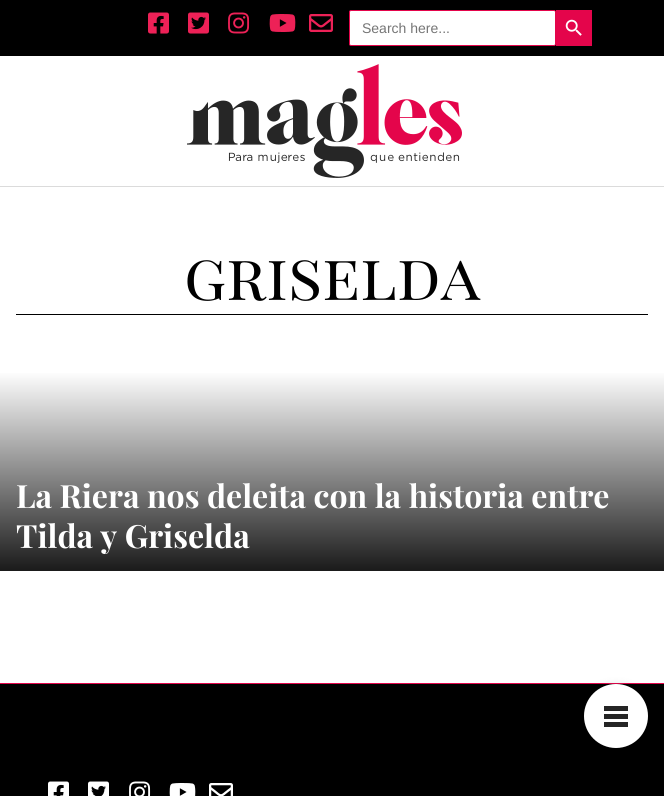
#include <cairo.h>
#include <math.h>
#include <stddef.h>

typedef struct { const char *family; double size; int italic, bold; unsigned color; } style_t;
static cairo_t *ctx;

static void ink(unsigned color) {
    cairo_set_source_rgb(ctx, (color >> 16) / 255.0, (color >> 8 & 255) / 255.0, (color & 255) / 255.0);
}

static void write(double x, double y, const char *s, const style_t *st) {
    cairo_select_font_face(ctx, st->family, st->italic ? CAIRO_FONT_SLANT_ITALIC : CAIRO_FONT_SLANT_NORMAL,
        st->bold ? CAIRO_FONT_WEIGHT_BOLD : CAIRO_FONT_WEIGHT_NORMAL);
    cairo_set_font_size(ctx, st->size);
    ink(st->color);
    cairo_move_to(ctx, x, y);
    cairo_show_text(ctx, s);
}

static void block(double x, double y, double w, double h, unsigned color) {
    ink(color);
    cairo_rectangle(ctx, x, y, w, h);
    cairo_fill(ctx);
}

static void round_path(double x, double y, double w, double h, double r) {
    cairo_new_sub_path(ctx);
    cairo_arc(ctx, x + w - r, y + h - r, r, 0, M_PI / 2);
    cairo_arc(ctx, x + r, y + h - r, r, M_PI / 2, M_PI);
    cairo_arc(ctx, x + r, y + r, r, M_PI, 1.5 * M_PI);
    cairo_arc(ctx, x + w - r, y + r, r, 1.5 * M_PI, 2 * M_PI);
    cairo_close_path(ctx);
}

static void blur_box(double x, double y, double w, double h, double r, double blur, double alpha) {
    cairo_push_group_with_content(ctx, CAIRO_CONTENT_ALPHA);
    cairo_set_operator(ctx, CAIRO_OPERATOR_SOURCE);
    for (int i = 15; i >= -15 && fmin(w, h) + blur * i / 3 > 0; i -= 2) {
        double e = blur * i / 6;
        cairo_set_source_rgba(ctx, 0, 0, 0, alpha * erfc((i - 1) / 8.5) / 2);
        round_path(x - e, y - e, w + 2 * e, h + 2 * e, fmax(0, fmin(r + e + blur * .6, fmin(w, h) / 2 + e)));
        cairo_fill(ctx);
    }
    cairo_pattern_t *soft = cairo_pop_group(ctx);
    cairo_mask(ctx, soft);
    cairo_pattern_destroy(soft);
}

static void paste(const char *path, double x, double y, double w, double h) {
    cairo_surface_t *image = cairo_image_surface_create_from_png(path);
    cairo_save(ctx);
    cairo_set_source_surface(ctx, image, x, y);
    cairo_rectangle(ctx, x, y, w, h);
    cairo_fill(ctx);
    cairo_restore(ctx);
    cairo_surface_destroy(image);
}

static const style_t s1 = {"Liberation Sans", 14, 0, 0, 0x757575};
static const style_t s2 = {"Playfair Display SC", 64, 0, 0, 0x000000};
static const style_t s3 = {"Playfair Display", 32, 0, 1, 0xffffff};

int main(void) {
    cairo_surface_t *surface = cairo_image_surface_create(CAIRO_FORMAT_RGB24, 664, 796);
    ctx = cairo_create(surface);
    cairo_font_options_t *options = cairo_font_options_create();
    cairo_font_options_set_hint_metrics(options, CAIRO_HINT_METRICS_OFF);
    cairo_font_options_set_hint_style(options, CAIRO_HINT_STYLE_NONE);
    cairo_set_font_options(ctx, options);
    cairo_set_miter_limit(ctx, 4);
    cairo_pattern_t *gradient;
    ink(0xffffff);
    cairo_paint(ctx);
    block(0, 0, 664, 56, 0x000000);
    paste("pic1.png", 148, 12, 21, 22);
    paste("pic2.png", 188, 12, 21, 22);
    paste("pic3.png", 228, 12, 22, 22);
    paste("pic4.png", 269, 14, 27, 18);
    paste("pic5.png", 309, 14, 24, 18);
    ink(0xffffff);
    round_path(349.5, 10.5, 206, 35, 1.5);
    cairo_fill_preserve(ctx);
    ink(0xe4054b);
    cairo_set_line_width(ctx, 1);
    cairo_stroke(ctx);
    write(362, 33, "Search here...", &s1);
    block(556, 10, 36, 36, 0xe4054b);
    paste("pic6.png", 565, 19, 17, 17);
    block(0, 186, 664, 1, 0xdbdbdb);
    paste("pic7.png", 187, 64, 275, 114);
    block(0, 684, 664, 112, 0x000000);
    block(0, 683, 664, 1, 0xe4054b);
    ink(0x000000);
    blur_box(584, 689, 64, 64, 32, 5, 0.5);
    ink(0xffffff);
    cairo_arc(ctx, 616, 716, 32, 0, 2 * M_PI);
    cairo_fill(ctx);
    block(604, 714, 24, 5, 0x252525);
    block(604, 706, 24, 5, 0x252525);
    block(604, 722, 24, 5, 0x252525);
    block(16, 314, 632, 1, 0x000000);
    write(184, 300, "griselda", &s2);
    gradient = cairo_pattern_create_linear(332, 371, 332, 571);
    cairo_pattern_add_color_stop_rgba(gradient, 0, 1, 1, 1, 1);
    cairo_pattern_add_color_stop_rgba(gradient, 1, 0.102, 0.102, 0.102, 1);
    cairo_set_source(ctx, gradient);
    cairo_pattern_destroy(gradient);
    cairo_rectangle(ctx, 0, 373, 664, 198);
    cairo_fill(ctx);
    write(16, 508, "La Riera nos deleita con la historia entre", &s3);
    write(16, 548, "Tilda y Griselda", &s3);
    paste("pic8.png", 48, 781, 21, 15);
    paste("pic9.png", 88, 781, 21, 15);
    paste("pic10.png", 129, 781, 22, 15);
    paste("pic11.png", 169, 783, 27, 13);
    paste("pic12.png", 209, 783, 24, 13);
    cairo_surface_write_to_png(surface, "screenshot.png");
    cairo_font_options_destroy(options);
    cairo_destroy(ctx);
    cairo_surface_destroy(surface);
    return 0;
}
